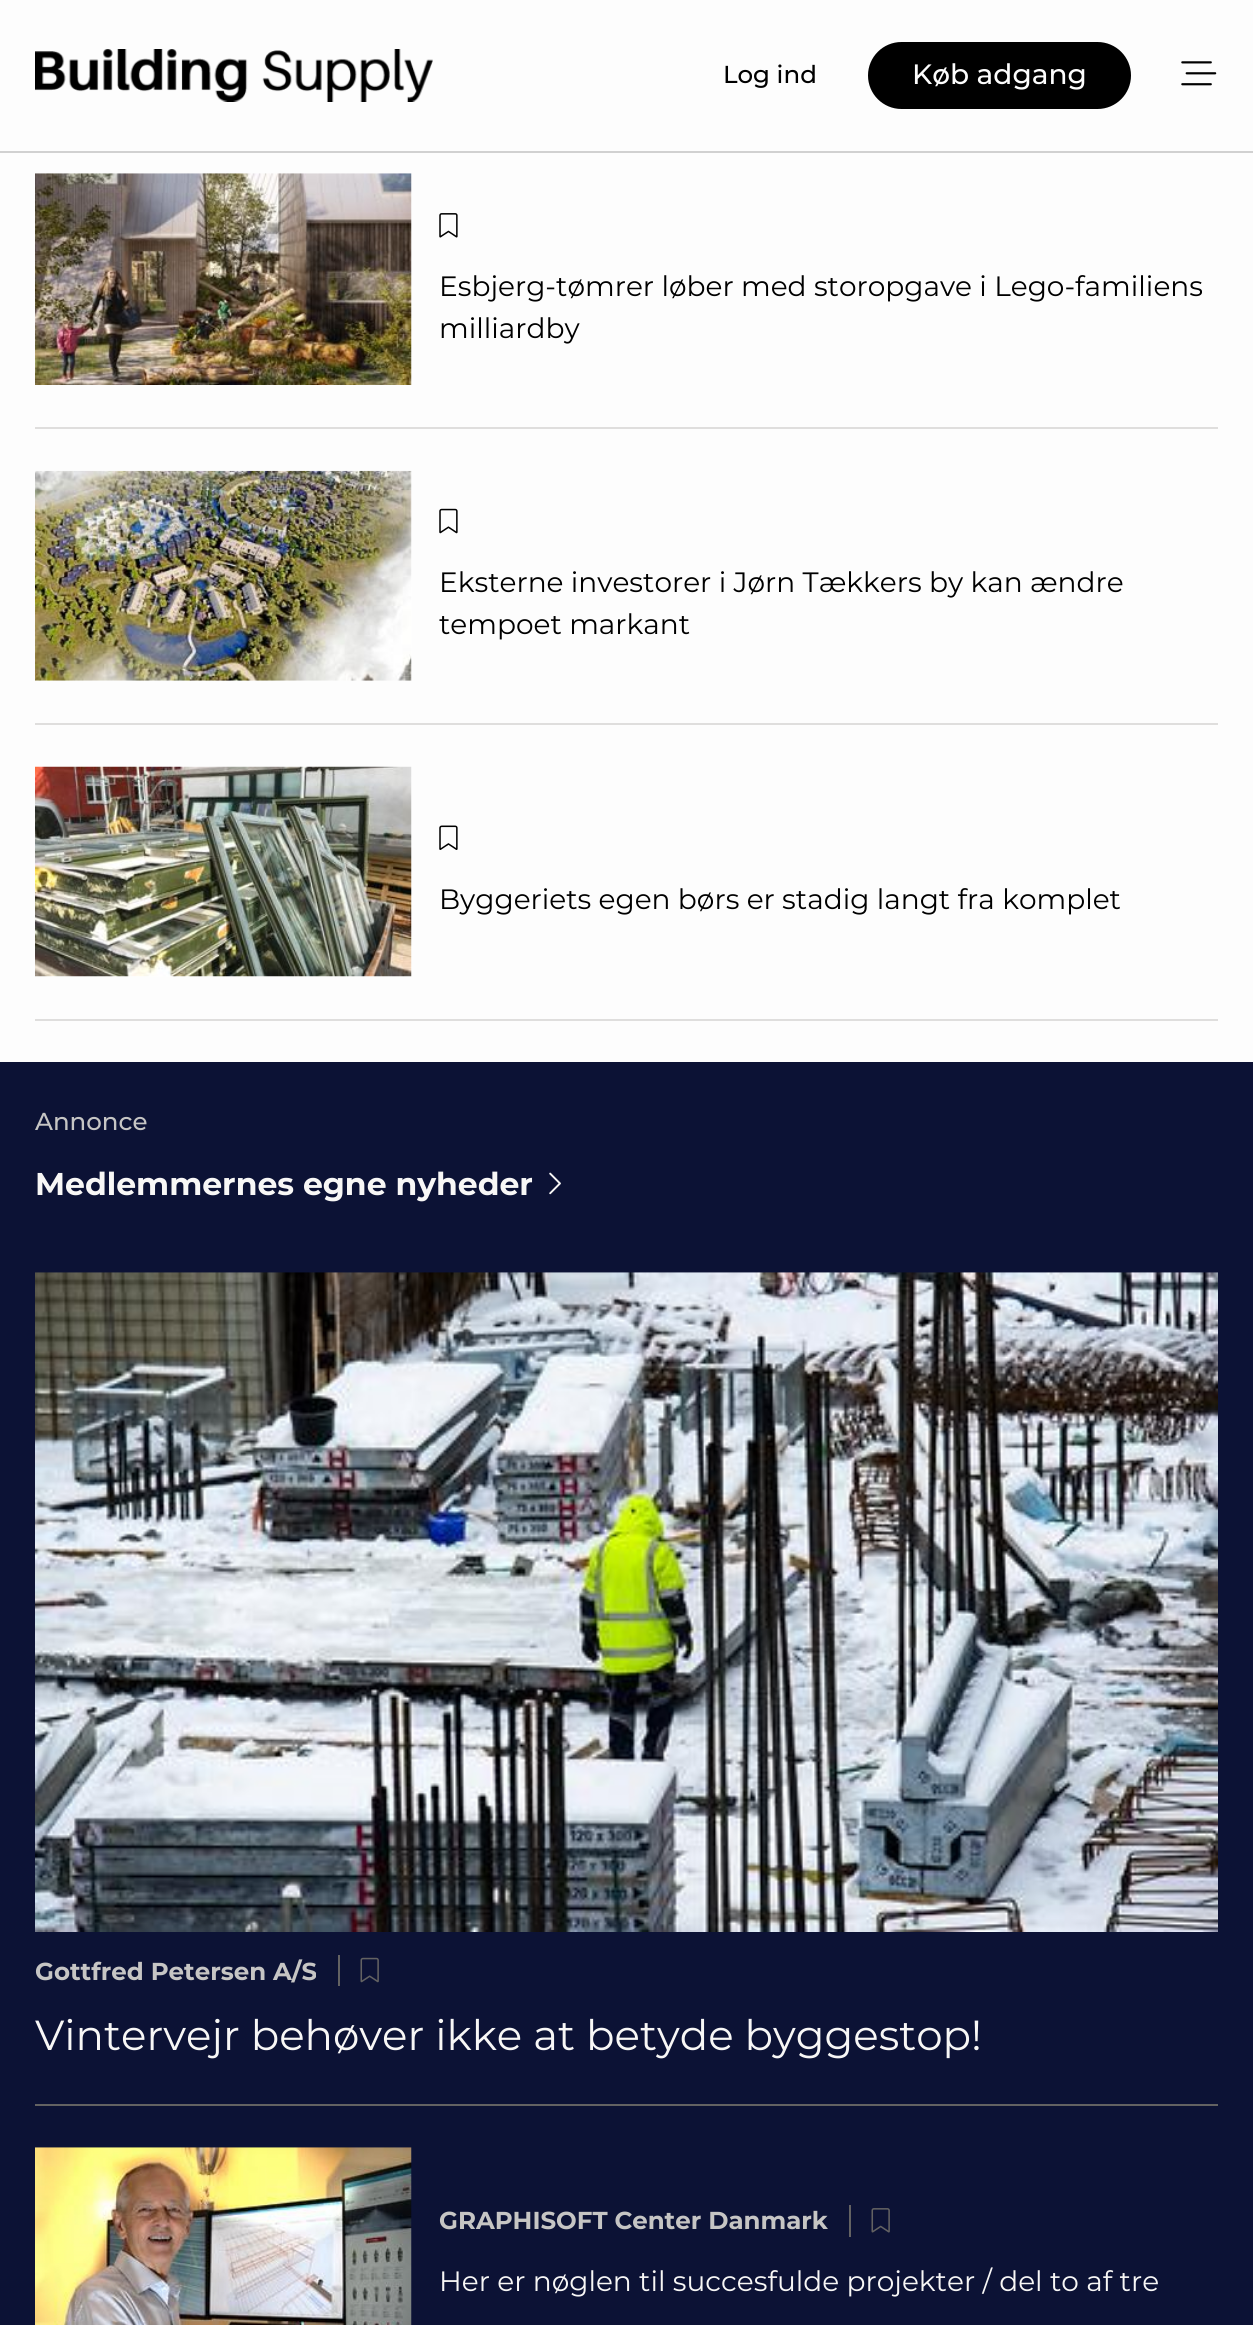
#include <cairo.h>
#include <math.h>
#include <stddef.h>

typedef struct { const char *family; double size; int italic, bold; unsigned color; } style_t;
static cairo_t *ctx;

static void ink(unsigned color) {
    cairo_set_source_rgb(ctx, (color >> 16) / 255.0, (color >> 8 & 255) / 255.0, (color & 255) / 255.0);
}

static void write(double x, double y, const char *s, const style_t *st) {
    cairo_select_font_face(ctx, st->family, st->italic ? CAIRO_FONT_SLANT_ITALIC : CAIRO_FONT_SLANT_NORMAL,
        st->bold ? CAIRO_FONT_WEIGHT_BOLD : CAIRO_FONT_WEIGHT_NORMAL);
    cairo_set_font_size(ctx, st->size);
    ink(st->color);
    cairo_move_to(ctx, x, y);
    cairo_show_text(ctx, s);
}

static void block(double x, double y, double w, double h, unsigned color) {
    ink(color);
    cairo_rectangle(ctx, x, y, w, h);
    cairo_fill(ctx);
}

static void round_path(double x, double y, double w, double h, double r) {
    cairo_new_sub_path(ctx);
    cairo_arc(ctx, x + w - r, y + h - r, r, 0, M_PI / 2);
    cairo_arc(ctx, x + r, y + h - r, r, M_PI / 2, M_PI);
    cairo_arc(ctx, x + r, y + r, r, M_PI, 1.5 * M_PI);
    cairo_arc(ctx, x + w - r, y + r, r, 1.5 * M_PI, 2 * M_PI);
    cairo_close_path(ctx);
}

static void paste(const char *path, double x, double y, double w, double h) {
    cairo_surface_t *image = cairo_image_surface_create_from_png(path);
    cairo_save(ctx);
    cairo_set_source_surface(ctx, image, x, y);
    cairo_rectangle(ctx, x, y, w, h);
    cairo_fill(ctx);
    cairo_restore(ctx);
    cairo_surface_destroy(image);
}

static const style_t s1 = {"Montserrat Medium", 24.5, 0, 0, 0x000000};
static const style_t s2 = {"Montserrat Medium", 28, 0, 0, 0xfdfdfd};
static const style_t s3 = {"Montserrat", 28, 0, 0, 0x000000};
static const style_t s4 = {"Montserrat Medium", 24.5, 0, 0, 0xc6c5c4};
static const style_t s5 = {"Montserrat", 31.5, 0, 1, 0xf8f7f6};
static const style_t s6 = {"Montserrat", 24.5, 0, 1, 0xc6c5c4};
static const style_t s7 = {"Montserrat", 42, 0, 0, 0xf8f7f6};
static const style_t s8 = {"Montserrat", 28, 0, 0, 0xf8f7f6};

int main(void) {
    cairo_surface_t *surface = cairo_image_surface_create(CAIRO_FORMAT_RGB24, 1253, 2325);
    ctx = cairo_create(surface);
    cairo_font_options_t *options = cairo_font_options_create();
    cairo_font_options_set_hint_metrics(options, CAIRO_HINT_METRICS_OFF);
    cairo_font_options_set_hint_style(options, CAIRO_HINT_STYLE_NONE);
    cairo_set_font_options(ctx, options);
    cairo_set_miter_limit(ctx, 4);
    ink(0xfdfdfd);
    cairo_paint(ctx);
    block(0, 151, 1253, 2, 0xd1d1d1);
    paste("pic1.png", 35, 49, 398, 53);
    write(723, 83, "Log ind", &s1);
    round_path(869, 43, 261, 65, 32.5);
    cairo_fill_preserve(ctx);
    cairo_stroke(ctx);
    write(912, 84, "Køb adgang", &s2);
    paste("pic2.png", 1181, 61, 36, 25);
    paste("pic3.png", 35, 173, 377, 212);
    paste("pic4.png", 439, 213, 19, 25);
    write(439, 296, "Esbjerg-tømrer løber med storopgave i Lego-familiens", &s3);
    write(439, 338, "milliardby", &s3);
    block(35, 427, 1183, 2, 0xdfdedd);
    paste("pic5.png", 35, 470, 377, 211);
    paste("pic6.png", 439, 508, 19, 26);
    write(439, 592, "Eksterne investorer i Jørn Tækkers by kan ændre", &s3);
    write(439, 634, "tempoet markant", &s3);
    block(35, 723, 1183, 2, 0xdfdedd);
    paste("pic7.png", 35, 766, 377, 211);
    paste("pic8.png", 439, 825, 19, 25);
    write(439, 909, "Byggeriets egen børs er stadig langt fra komplet", &s3);
    block(35, 1019, 1183, 2, 0xdfdedd);
    block(0, 1062, 1253, 1263, 0x0c1235);
    write(35, 1130, "Annonce", &s4);
    write(35, 1195, "Medlemmernes egne nyheder", &s5);
    paste("pic9.png", 549, 1172, 12, 23);
    paste("pic10.png", 35, 1272, 1183, 660);
    write(35, 1980, "Gottfred Petersen A/S", &s6);
    block(338, 1955, 2, 31, 0x636262);
    paste("pic11.png", 360, 1957, 19, 26);
    write(35, 2050, "Vintervejr behøver ikke at betyde byggestop!", &s7);
    block(35, 2104, 1183, 2, 0x636262);
    paste("pic12.png", 35, 2147, 377, 178);
    write(439, 2229, "GRAPHISOFT Center Danmark", &s6);
    block(849, 2205, 2, 32, 0x636262);
    paste("pic13.png", 871, 2208, 19, 25);
    write(439, 2291, "Her er nøglen til succesfulde projekter / del to af tre", &s8);
    cairo_surface_write_to_png(surface, "screenshot.png");
    cairo_font_options_destroy(options);
    cairo_destroy(ctx);
    cairo_surface_destroy(surface);
    return 0;
}
